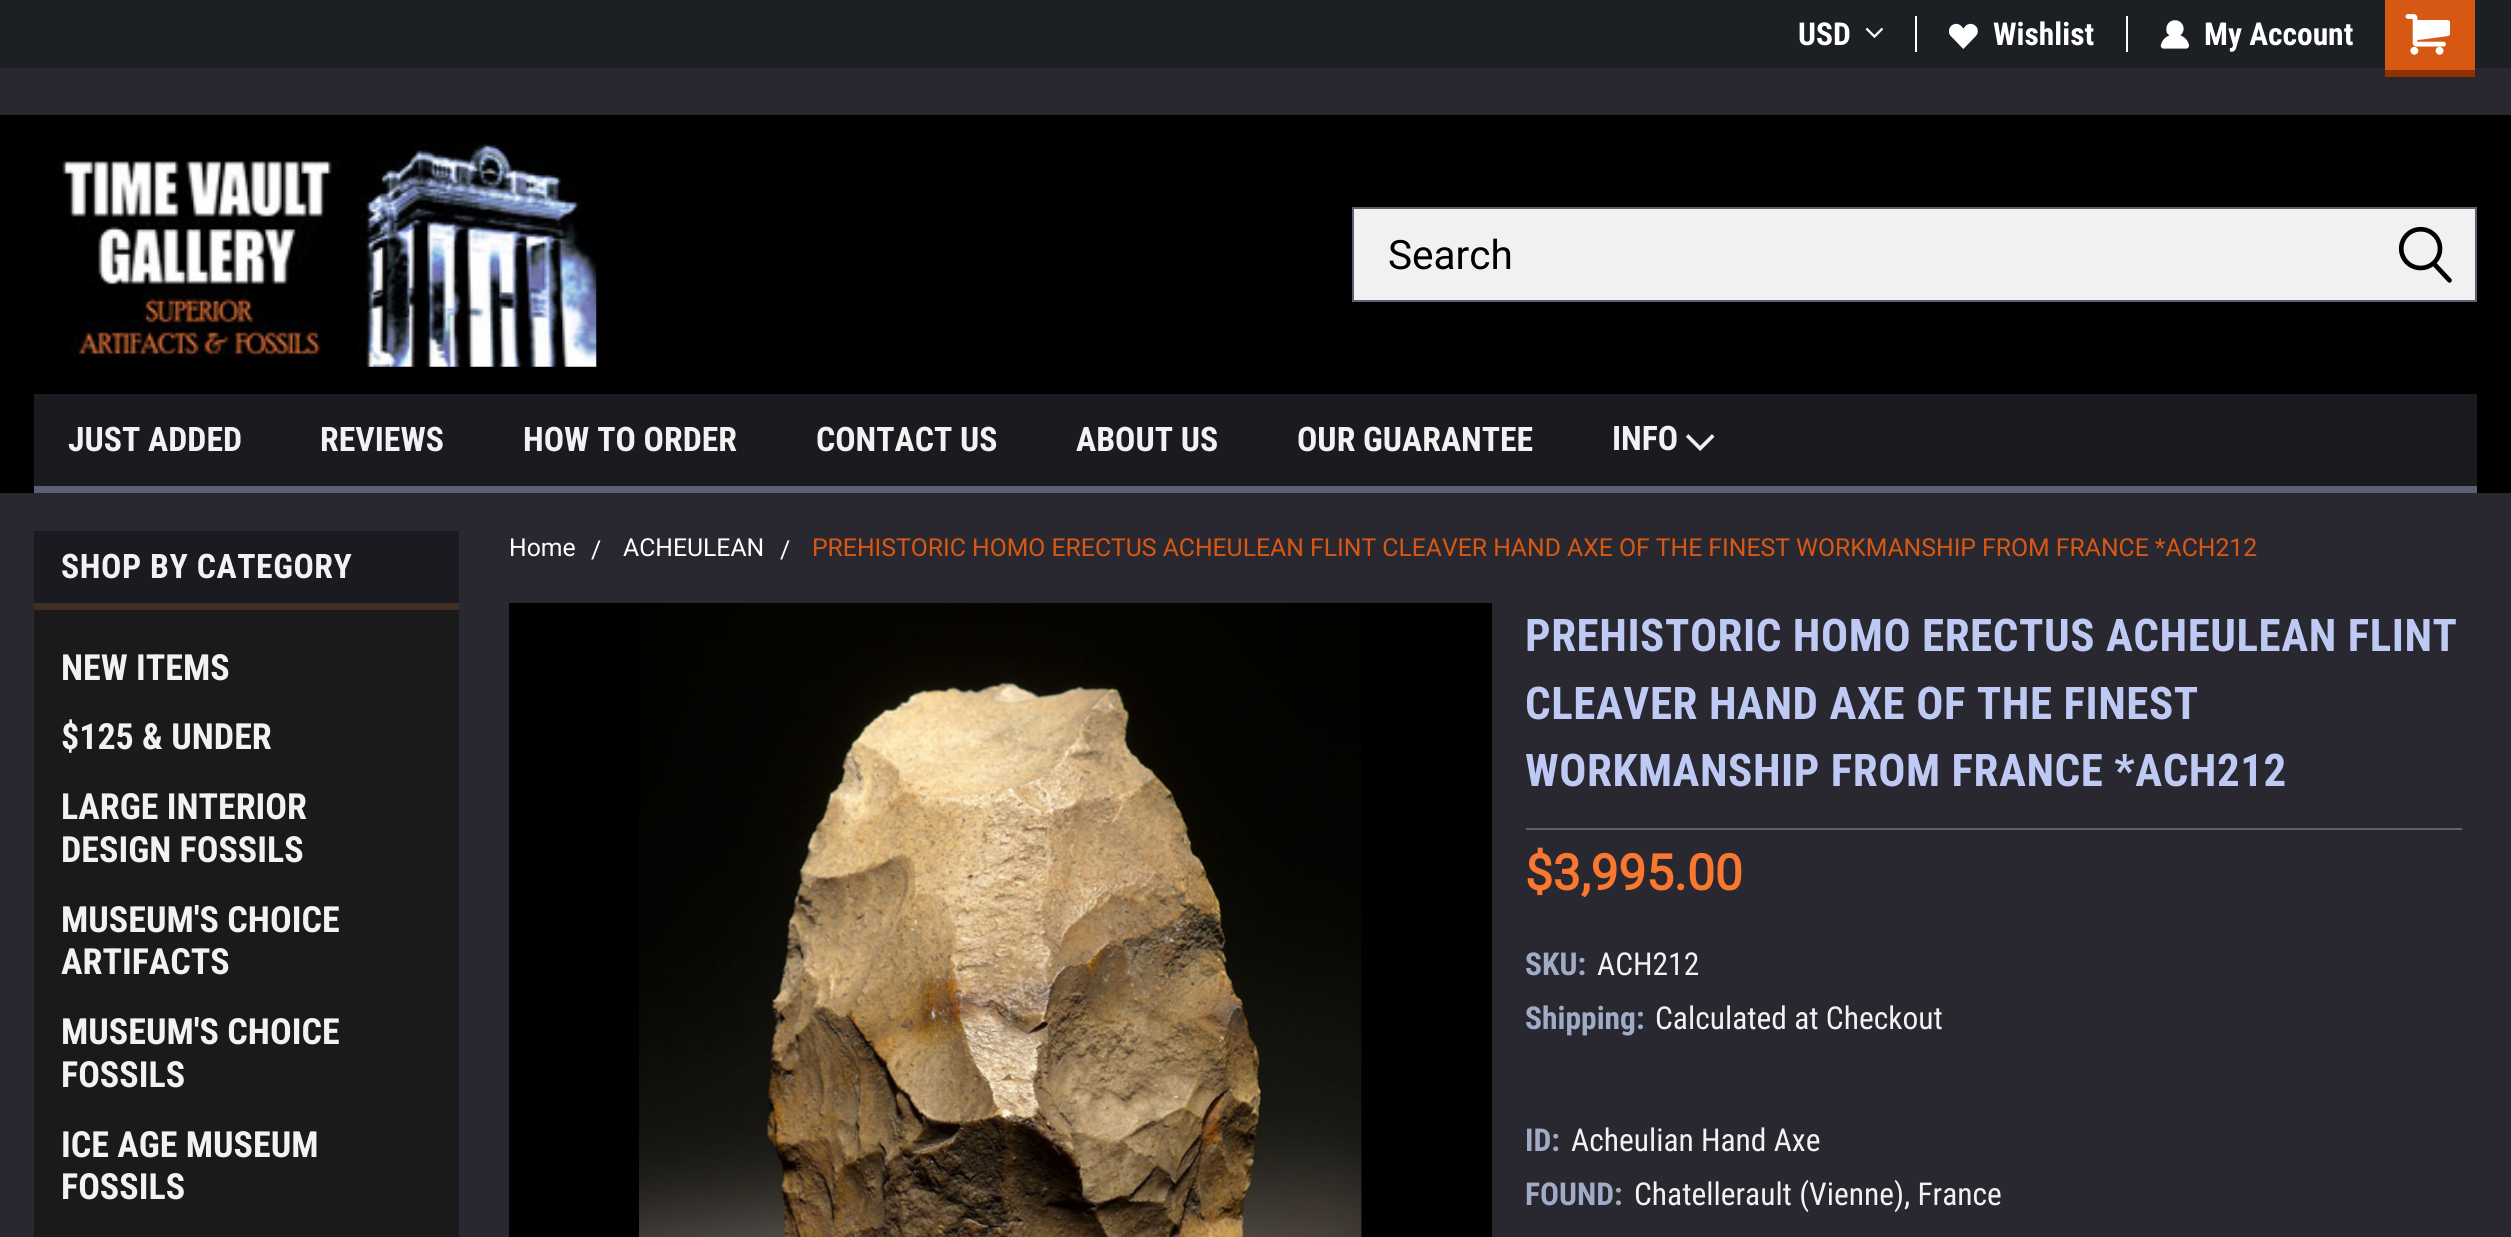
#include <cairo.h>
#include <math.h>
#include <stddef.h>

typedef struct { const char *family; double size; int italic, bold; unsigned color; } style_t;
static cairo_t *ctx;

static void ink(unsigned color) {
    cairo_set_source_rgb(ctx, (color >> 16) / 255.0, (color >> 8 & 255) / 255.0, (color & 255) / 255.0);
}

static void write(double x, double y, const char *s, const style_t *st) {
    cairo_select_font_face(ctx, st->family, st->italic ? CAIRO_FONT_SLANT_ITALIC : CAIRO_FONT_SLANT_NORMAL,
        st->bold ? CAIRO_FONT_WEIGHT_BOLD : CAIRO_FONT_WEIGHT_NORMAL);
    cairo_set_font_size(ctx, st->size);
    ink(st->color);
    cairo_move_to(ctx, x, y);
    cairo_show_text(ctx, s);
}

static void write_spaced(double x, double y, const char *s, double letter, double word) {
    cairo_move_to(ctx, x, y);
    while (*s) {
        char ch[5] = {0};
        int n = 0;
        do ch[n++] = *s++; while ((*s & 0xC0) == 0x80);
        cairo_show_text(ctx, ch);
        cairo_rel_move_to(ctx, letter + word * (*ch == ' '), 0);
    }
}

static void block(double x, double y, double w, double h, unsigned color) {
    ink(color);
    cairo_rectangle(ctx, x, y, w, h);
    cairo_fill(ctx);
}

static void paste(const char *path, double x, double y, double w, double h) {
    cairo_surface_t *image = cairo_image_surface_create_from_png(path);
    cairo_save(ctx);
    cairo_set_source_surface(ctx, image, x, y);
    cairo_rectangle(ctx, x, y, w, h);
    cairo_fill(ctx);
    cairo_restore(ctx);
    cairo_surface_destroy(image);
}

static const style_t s1 = {"Roboto Condensed", 31.5, 0, 1, 0xffffff};
static const style_t s2 = {"Roboto", 40.5, 0, 0, 0x000000};
static const style_t s3 = {"Roboto Condensed", 33.75, 0, 1, 0xf3f2f2};
static const style_t s4 = {"Roboto Condensed", 36, 0, 1, 0xf3f2f2};
static const style_t s5 = {"Roboto", 24.75, 0, 0, 0xffffff};
static const style_t s6 = {"Roboto", 24.75, 0, 0, 0xd75813};
static const style_t s7 = {"Roboto", 49.5, 0, 1, 0xfa772f};
static const style_t s8 = {"Roboto Condensed", 31.5, 0, 1, 0xa0abc5};
static const style_t s9 = {"Roboto Condensed", 31.5, 0, 0, 0xf3f2f2};

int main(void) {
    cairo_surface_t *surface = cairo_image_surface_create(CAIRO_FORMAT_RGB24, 2511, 1237);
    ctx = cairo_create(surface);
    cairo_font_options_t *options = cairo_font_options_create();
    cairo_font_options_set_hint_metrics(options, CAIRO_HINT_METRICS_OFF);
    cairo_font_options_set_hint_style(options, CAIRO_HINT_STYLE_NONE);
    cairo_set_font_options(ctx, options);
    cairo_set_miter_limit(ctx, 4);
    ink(0x292831);
    cairo_paint(ctx);
    block(0, 115, 2511, 378, 0x000000);
    block(0, 0, 2511, 68, 0x1c1f24);
    block(1915, 16, 2, 36, 0xffffff);
    write(1798, 45, "USD", &s1);
    paste("pic1.png", 1865, 27, 18, 12);
    block(2126, 16, 2, 36, 0xffffff);
    paste("pic2.png", 1949, 23, 29, 26);
    write(1993, 45, "Wishlist", &s1);
    paste("pic3.png", 2160, 20, 29, 29);
    write(2204, 45, "My Account", &s1);
    block(2385, 0, 90, 70, 0xd75813);
    block(2385, 70, 90, 7, 0x8f3200);
    paste("pic4.png", 2405, 14, 45, 41);
    paste("pic5.png", 57, 142, 540, 225);
    ink(0xf2f0f0);
    cairo_rectangle(ctx, 1353, 208, 1123, 93);
    cairo_fill_preserve(ctx);
    ink(0x5b6073);
    cairo_stroke(ctx);
    write(1388, 269, "Search", &s2);
    paste("pic6.png", 2398, 226, 54, 57);
    block(34, 394, 2443, 92, 0x1b1a20);
    block(34, 486, 2443, 7, 0x5b6073);
    write(68, 451, "JUST ADDED", &s3);
    write(320, 451, "REVIEWS", &s3);
    write(523, 451, "HOW TO ORDER", &s3);
    write(816, 451, "CONTACT US", &s3);
    write(1076, 451, "ABOUT US", &s3);
    write(1297, 451, "OUR GUARANTEE", &s3);
    write(1612, 450, "INFO", &s3);
    paste("pic7.png", 1685, 434, 30, 17);
    block(34, 531, 425, 72, 0x1b1a20);
    block(34, 603, 425, 7, 0x412f25);
    ink(0xf3f2f2);
    write_spaced(61, 578, "SHOP BY CATEGORY", 0.55, 0);
    block(34, 610, 425, 627, 0x1a1a1a);
    write(61, 680, "NEW ITEMS", &s4);
    write(61, 749, "$125 & UNDER", &s4);
    write(61, 819, "LARGE INTERIOR", &s4);
    write(61, 862, "DESIGN FOSSILS", &s4);
    write(61, 932, "MUSEUM'S CHOICE", &s4);
    write(61, 974, "ARTIFACTS", &s4);
    write(61, 1044, "MUSEUM'S CHOICE", &s4);
    write(61, 1087, "FOSSILS", &s4);
    write(61, 1157, "ICE AGE MUSEUM", &s4);
    write(61, 1199, "FOSSILS", &s4);
    write(509, 556, "Home", &s5);
    write(591, 558, "/", &s5);
    write(623, 556, "ACHEULEAN", &s5);
    write(780, 558, "/", &s5);
    write(812, 556, "PREHISTORIC HOMO ERECTUS ACHEULEAN FLINT CLEAVER HAND AXE OF THE FINEST WORKMANSHIP FROM FRANCE *ACH212", &s6);
    block(509, 603, 983, 634, 0x000000);
    paste("pic8.png", 639, 603, 723, 634);
    block(1526, 828, 936, 2, 0x5b6073);
    cairo_select_font_face(ctx, "Roboto Condensed", CAIRO_FONT_SLANT_NORMAL, CAIRO_FONT_WEIGHT_BOLD);
    cairo_set_font_size(ctx, 45);
    ink(0xbfcaf4);
    write_spaced(1525, 651, "PREHISTORIC HOMO ERECTUS ACHEULEAN FLINT", 0.55, 0);
    write_spaced(1525, 719, "CLEAVER HAND AXE OF THE FINEST", 0.55, 0);
    write_spaced(1525, 786, "WORKMANSHIP FROM FRANCE *ACH212", 0.55, 0);
    write(1525, 890, "$3,995.00", &s7);
    write(1525, 975, "SKU:", &s8);
    write(1597, 975, "ACH212", &s9);
    write(1525, 1029, "Shipping:", &s8);
    write(1655, 1029, "Calculated at Checkout", &s9);
    write(1525, 1151, "ID:", &s8);
    write(1571, 1151, "Acheulian Hand Axe", &s9);
    write(1525, 1205, "FOUND:", &s8);
    write(1634, 1205, "Chatellerault (Vienne), France", &s9);
    cairo_surface_write_to_png(surface, "screenshot.png");
    cairo_font_options_destroy(options);
    cairo_destroy(ctx);
    cairo_surface_destroy(surface);
    return 0;
}
